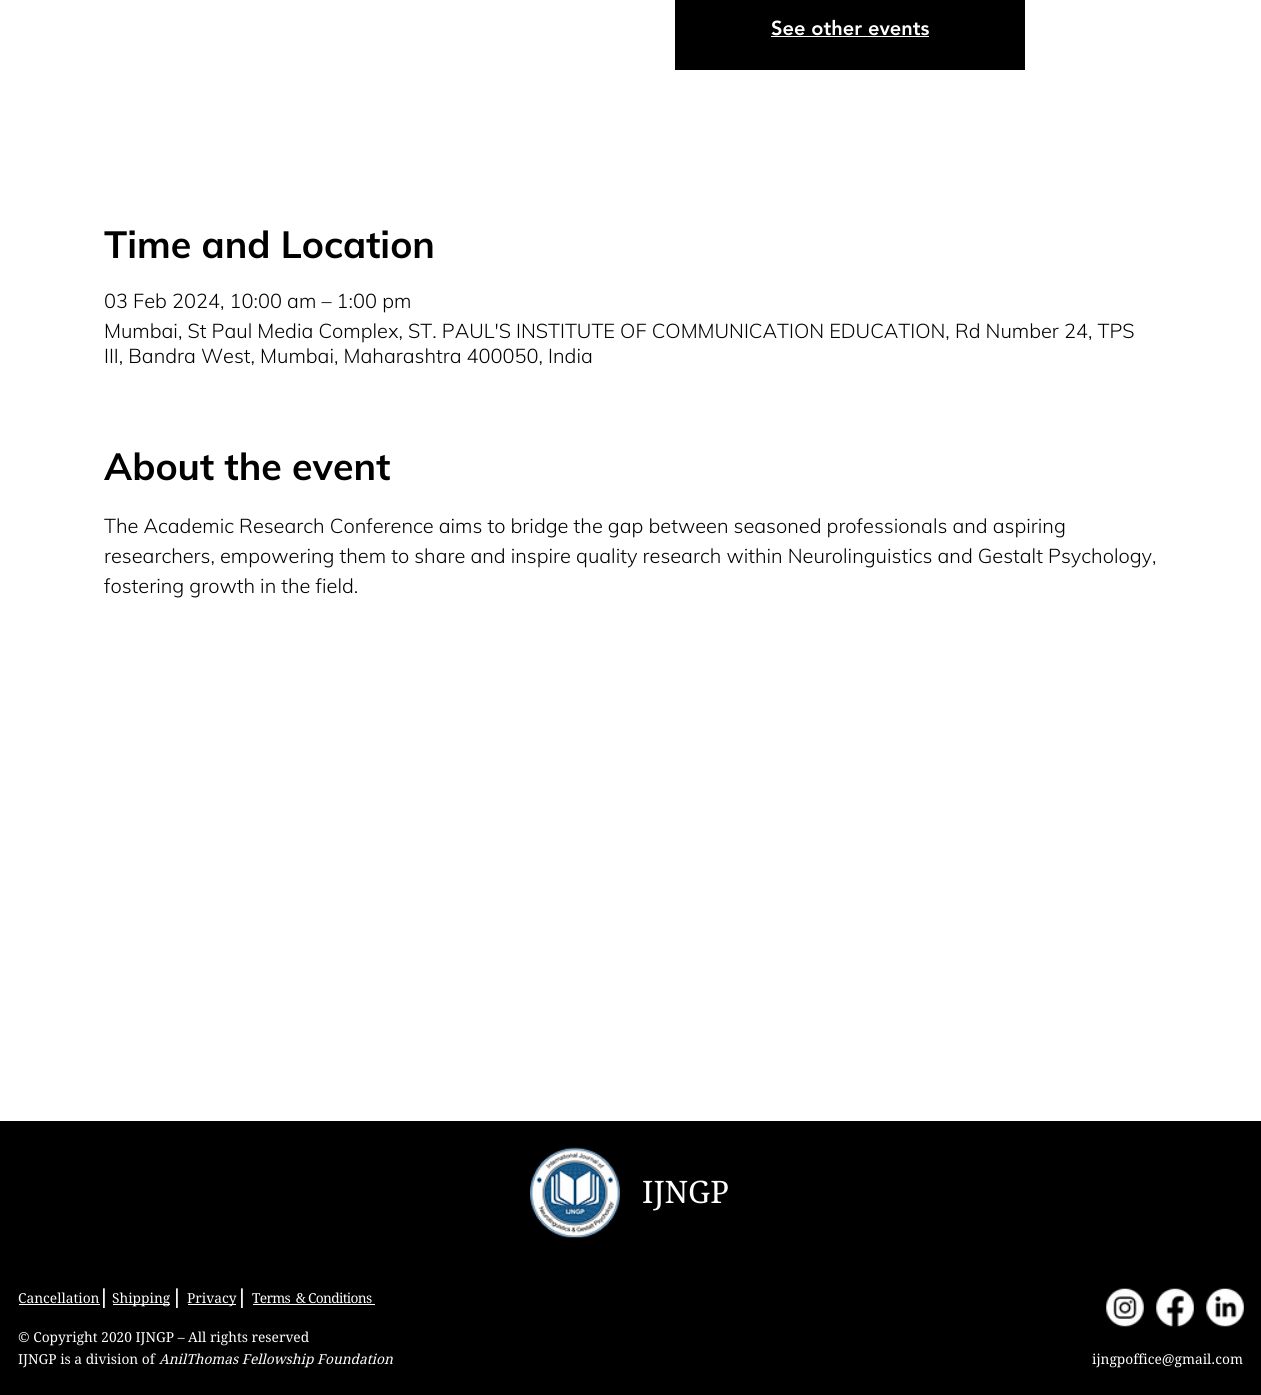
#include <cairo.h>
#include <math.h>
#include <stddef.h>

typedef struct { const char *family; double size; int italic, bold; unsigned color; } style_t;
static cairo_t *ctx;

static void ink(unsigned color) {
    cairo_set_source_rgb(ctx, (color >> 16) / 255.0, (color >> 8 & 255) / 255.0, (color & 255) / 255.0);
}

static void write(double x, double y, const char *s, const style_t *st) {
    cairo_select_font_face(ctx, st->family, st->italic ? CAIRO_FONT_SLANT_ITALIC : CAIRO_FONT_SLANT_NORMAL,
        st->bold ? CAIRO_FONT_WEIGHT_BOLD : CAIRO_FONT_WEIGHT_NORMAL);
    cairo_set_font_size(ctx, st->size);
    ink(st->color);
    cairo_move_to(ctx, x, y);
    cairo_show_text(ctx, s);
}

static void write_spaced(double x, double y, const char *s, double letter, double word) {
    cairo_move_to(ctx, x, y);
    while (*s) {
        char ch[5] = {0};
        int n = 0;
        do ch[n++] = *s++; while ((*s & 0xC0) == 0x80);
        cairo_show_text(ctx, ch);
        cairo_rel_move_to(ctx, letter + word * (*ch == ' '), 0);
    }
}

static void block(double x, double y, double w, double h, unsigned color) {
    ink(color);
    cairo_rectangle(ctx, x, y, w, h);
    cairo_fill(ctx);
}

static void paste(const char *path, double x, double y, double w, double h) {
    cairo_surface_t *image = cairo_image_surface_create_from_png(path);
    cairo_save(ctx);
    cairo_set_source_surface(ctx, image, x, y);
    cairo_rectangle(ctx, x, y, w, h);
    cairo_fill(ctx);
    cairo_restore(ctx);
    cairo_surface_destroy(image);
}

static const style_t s1 = {"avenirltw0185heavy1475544 Black", 20, 0, 0, 0xffffff};
static const style_t s2 = {"Muli", 37.5, 0, 1, 0x000000};
static const style_t s3 = {"Muli Light", 20, 0, 0, 0x000000};
static const style_t s4 = {"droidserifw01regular", 31, 0, 0, 0xffffff};
static const style_t s5 = {"droidserifw01regular", 13.75, 0, 0, 0xffffff};
static const style_t s6 = {"Muli", 22, 0, 0, 0xffffff};
static const style_t s7 = {"droidserifw01regular", 13.75, 1, 0, 0xffffff};

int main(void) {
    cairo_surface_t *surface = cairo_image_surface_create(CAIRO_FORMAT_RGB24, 1261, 1395);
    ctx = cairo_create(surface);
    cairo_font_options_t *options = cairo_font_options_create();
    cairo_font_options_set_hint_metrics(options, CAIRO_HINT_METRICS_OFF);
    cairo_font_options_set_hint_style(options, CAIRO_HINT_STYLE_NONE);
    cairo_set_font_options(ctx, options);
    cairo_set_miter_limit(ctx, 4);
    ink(0xffffff);
    cairo_paint(ctx);
    block(675, 0, 350, 70, 0x000000);
    write(771, 35, "See other events", &s1);
    block(771, 36, 158, 1, 0xffffff);
    write(104, 258, "Time and Location", &s2);
    write(104, 308, "03 Feb 2024, 10:00 am – 1:00 pm", &s3);
    write(104, 338, "Mumbai, St Paul Media Complex, ST. PAUL'S INSTITUTE OF COMMUNICATION EDUCATION, Rd Number 24, TPS", &s3);
    write(104, 363, "III, Bandra West, Mumbai, Maharashtra 400050, India", &s3);
    write(104, 480, "About the event", &s2);
    write(104, 533, "The Academic Research Conference aims to bridge the gap between seasoned professionals and aspiring", &s3);
    write(104, 563, "researchers, empowering them to share and inspire quality research within Neurolinguistics and Gestalt Psychology,", &s3);
    write(104, 593, "fostering growth in the field.", &s3);
    block(0, 1121, 1261, 274, 0x000000);
    paste("pic1.png", 530, 1147, 90, 91);
    write(642, 1203, "IJNGP", &s4);
    write(18, 1303, "Cancellation", &s5);
    block(19, 1304, 81, 1, 0xffffff);
    write(101, 1304, "|", &s6);
    block(113, 1304, 57, 1, 0xffffff);
    write(112, 1303, "Shipping", &s5);
    write(174, 1304, "|", &s6);
    block(188, 1304, 48, 1, 0xffffff);
    write(187, 1303, "Privacy", &s5);
    write(239, 1304, "|", &s6);
    cairo_select_font_face(ctx, "droidserifw01regular", CAIRO_FONT_SLANT_NORMAL, CAIRO_FONT_WEIGHT_NORMAL);
    cairo_set_font_size(ctx, 13.75);
    write_spaced(252, 1303, "Terms  & Conditions", -0.7, 0);
    block(253, 1304, 122, 1, 0xffffff);
    paste("pic2.png", 1106, 1288, 38, 39);
    paste("pic3.png", 1156, 1288, 38, 39);
    paste("pic4.png", 1206, 1288, 38, 39);
    write(18, 1342, "© Copyright 2020 IJNGP – All rights reserved", &s5);
    write(18, 1364, "IJNGP is a division of", &s5);
    write(159, 1364, "AnilThomas Fellowship Foundation", &s7);
    write(1092, 1364, "ijngpoffice@gmail.com", &s5);
    cairo_surface_write_to_png(surface, "screenshot.png");
    cairo_font_options_destroy(options);
    cairo_destroy(ctx);
    cairo_surface_destroy(surface);
    return 0;
}
